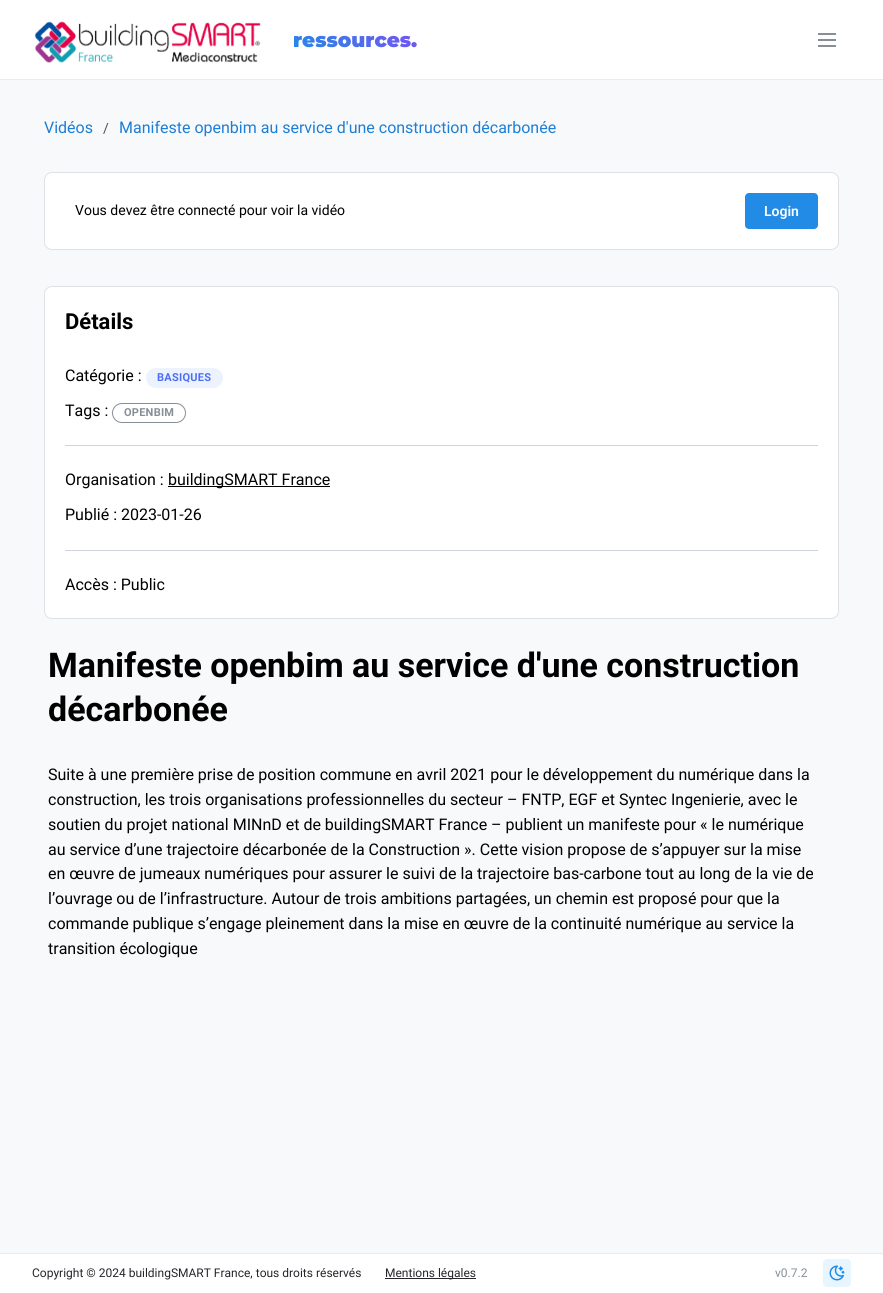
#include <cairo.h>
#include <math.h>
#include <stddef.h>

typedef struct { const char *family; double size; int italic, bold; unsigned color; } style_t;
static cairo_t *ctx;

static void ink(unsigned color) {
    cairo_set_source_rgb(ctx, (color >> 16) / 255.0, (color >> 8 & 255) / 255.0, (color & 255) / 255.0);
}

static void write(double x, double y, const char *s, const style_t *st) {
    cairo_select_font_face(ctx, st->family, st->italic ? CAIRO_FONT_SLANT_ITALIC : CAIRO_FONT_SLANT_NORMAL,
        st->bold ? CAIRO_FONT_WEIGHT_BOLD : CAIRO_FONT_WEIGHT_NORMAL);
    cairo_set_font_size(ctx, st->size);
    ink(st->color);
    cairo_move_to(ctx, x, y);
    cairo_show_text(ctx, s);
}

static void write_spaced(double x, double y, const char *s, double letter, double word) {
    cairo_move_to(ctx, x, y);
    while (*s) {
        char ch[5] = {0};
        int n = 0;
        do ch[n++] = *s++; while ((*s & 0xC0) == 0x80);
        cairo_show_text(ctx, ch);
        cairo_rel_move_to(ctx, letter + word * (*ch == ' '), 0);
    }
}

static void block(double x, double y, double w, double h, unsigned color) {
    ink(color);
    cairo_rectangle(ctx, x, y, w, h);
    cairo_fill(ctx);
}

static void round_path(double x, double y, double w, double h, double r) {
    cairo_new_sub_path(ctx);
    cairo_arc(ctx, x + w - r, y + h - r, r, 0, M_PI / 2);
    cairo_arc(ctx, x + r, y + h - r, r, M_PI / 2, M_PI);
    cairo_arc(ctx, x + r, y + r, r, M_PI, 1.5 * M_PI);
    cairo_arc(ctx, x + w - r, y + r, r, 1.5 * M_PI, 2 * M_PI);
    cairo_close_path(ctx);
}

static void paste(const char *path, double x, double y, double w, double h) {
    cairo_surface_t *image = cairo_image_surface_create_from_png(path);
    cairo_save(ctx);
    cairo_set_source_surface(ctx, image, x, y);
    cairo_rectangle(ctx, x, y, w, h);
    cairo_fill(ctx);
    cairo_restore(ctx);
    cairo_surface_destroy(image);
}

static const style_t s1 = {"Roboto", 16, 0, 0, 0x1c7ed6};
static const style_t s2 = {"Roboto", 14, 0, 0, 0x495057};
static const style_t s3 = {"Roboto", 14, 0, 0, 0x000000};
static const style_t s4 = {"Roboto SemiBold", 14, 0, 0, 0xffffff};
static const style_t s5 = {"Roboto", 22, 0, 1, 0x000000};
static const style_t s6 = {"Roboto", 16, 0, 0, 0x000000};
static const style_t s7 = {"Roboto", 34, 0, 1, 0x000000};
static const style_t s8 = {"Roboto", 12, 0, 0, 0x25262b};
static const style_t s9 = {"Roboto", 12, 0, 0, 0x868e96};

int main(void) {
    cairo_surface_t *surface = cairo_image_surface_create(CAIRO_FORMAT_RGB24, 883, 1293);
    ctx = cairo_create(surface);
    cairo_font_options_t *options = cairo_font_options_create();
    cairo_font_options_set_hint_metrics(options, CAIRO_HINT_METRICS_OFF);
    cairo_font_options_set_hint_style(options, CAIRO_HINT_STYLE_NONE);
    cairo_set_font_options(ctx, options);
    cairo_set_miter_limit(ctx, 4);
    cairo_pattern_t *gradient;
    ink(0xf8f9fa);
    cairo_paint(ctx);
    block(0, 0, 883, 79, 0xffffff);
    block(0, 79, 883, 1, 0xe9ecef);
    paste("pic1.png", 34, 21, 227, 42);
    cairo_select_font_face(ctx, "Montserrat Thin", CAIRO_FONT_SLANT_NORMAL, CAIRO_FONT_WEIGHT_NORMAL);
    cairo_set_font_size(ctx, 20);
    gradient = cairo_pattern_create_linear(316, 79, 394, 1.2);
    cairo_pattern_add_color_stop_rgba(gradient, 0, 0.133, 0.545, 0.902, 1);
    cairo_pattern_add_color_stop_rgba(gradient, 1, 0.475, 0.314, 0.949, 1);
    cairo_set_source(ctx, gradient);
    cairo_pattern_destroy(gradient);
    cairo_move_to(ctx, 293, 47);
    cairo_show_text(ctx, "ressources.");
    block(818, 39, 18, 2, 0x868e96);
    block(818, 33, 18, 2, 0x868e96);
    block(818, 45, 18, 2, 0x868e96);
    write(44, 133, "Vidéos", &s1);
    write(103, 133, "/", &s2);
    write(119, 133, "Manifeste openbim au service d'une construction décarbonée", &s1);
    ink(0xffffff);
    round_path(44.5, 172.5, 794, 77, 7.5);
    cairo_fill_preserve(ctx);
    ink(0xdee2e6);
    cairo_set_line_width(ctx, 1);
    cairo_stroke(ctx);
    write(75, 215, "Vous devez être connecté pour voir la vidéo", &s3);
    ink(0x228be6);
    round_path(745, 193, 73, 36, 4);
    cairo_fill(ctx);
    write(764, 216, "Login", &s4);
    round_path(44.5, 286.5, 794, 332, 7.5);
    cairo_fill_preserve(ctx);
    ink(0xdee2e6);
    cairo_stroke(ctx);
    write(65, 329, "Détails", &s5);
    write(65, 381, "Catégorie :", &s6);
    ink(0xedf2ff);
    round_path(146, 368, 77, 20, 10);
    cairo_fill(ctx);
    cairo_select_font_face(ctx, "Roboto", CAIRO_FONT_SLANT_NORMAL, CAIRO_FONT_WEIGHT_BOLD);
    cairo_set_font_size(ctx, 11);
    ink(0x4c6ef5);
    write_spaced(157, 381, "BASIQUES", 0.25, 0);
    write(65, 416, "Tags :", &s6);
    round_path(112.5, 403.5, 73, 19, 9.5);
    ink(0x868e96);
    cairo_stroke(ctx);
    cairo_select_font_face(ctx, "Roboto", CAIRO_FONT_SLANT_NORMAL, CAIRO_FONT_WEIGHT_BOLD);
    cairo_set_font_size(ctx, 11);
    write_spaced(124, 416, "OPENBIM", 0.25, 0);
    block(65, 445, 753, 1, 0xced4da);
    write(65, 485, "Organisation :", &s6);
    block(168, 486, 162, 1, 0x000000);
    write(168, 485, "buildingSMART France", &s6);
    write(65, 520, "Publié : 2023-01-26", &s6);
    block(65, 550, 753, 1, 0xced4da);
    write(65, 590, "Accès : Public", &s6);
    write(48, 677, "Manifeste openbim au service d'une construction", &s7);
    write(48, 721, "décarbonée", &s7);
    write(48, 780, "Suite à une première prise de position commune en avril 2021 pour le développement du numérique dans la", &s6);
    write(48, 805, "construction, les trois organisations professionnelles du secteur – FNTP, EGF et Syntec Ingenierie, avec le", &s6);
    write(48, 830, "soutien du projet national MINnD et de buildingSMART France – publient un manifeste pour « le numérique", &s6);
    write(48, 855, "au service d’une trajectoire décarbonée de la Construction ». Cette vision propose de s’appuyer sur la mise", &s6);
    write(48, 879, "en œuvre de jumeaux numériques pour assurer le suivi de la trajectoire bas-carbone tout au long de la vie de", &s6);
    write(48, 904, "l’ouvrage ou de l’infrastructure. Autour de trois ambitions partagées, un chemin est proposé pour que la", &s6);
    write(48, 929, "commande publique s’engage pleinement dans la mise en œuvre de la continuité numérique au service la", &s6);
    write(48, 954, "transition écologique", &s6);
    block(0, 1254, 883, 39, 0xffffff);
    block(0, 1253, 883, 1, 0xe9ecef);
    write(32, 1277, "Copyright © 2024 buildingSMART France, tous droits réservés", &s8);
    block(385, 1278, 91, 1, 0x25262b);
    write(385, 1277, "Mentions légales", &s8);
    write(775, 1277, "v0.7.2", &s9);
    ink(0xe7f5ff);
    round_path(823, 1259, 28, 28, 4);
    cairo_fill(ctx);
    paste("pic2.png", 829, 1265, 16, 16);
    cairo_surface_write_to_png(surface, "screenshot.png");
    cairo_font_options_destroy(options);
    cairo_destroy(ctx);
    cairo_surface_destroy(surface);
    return 0;
}
